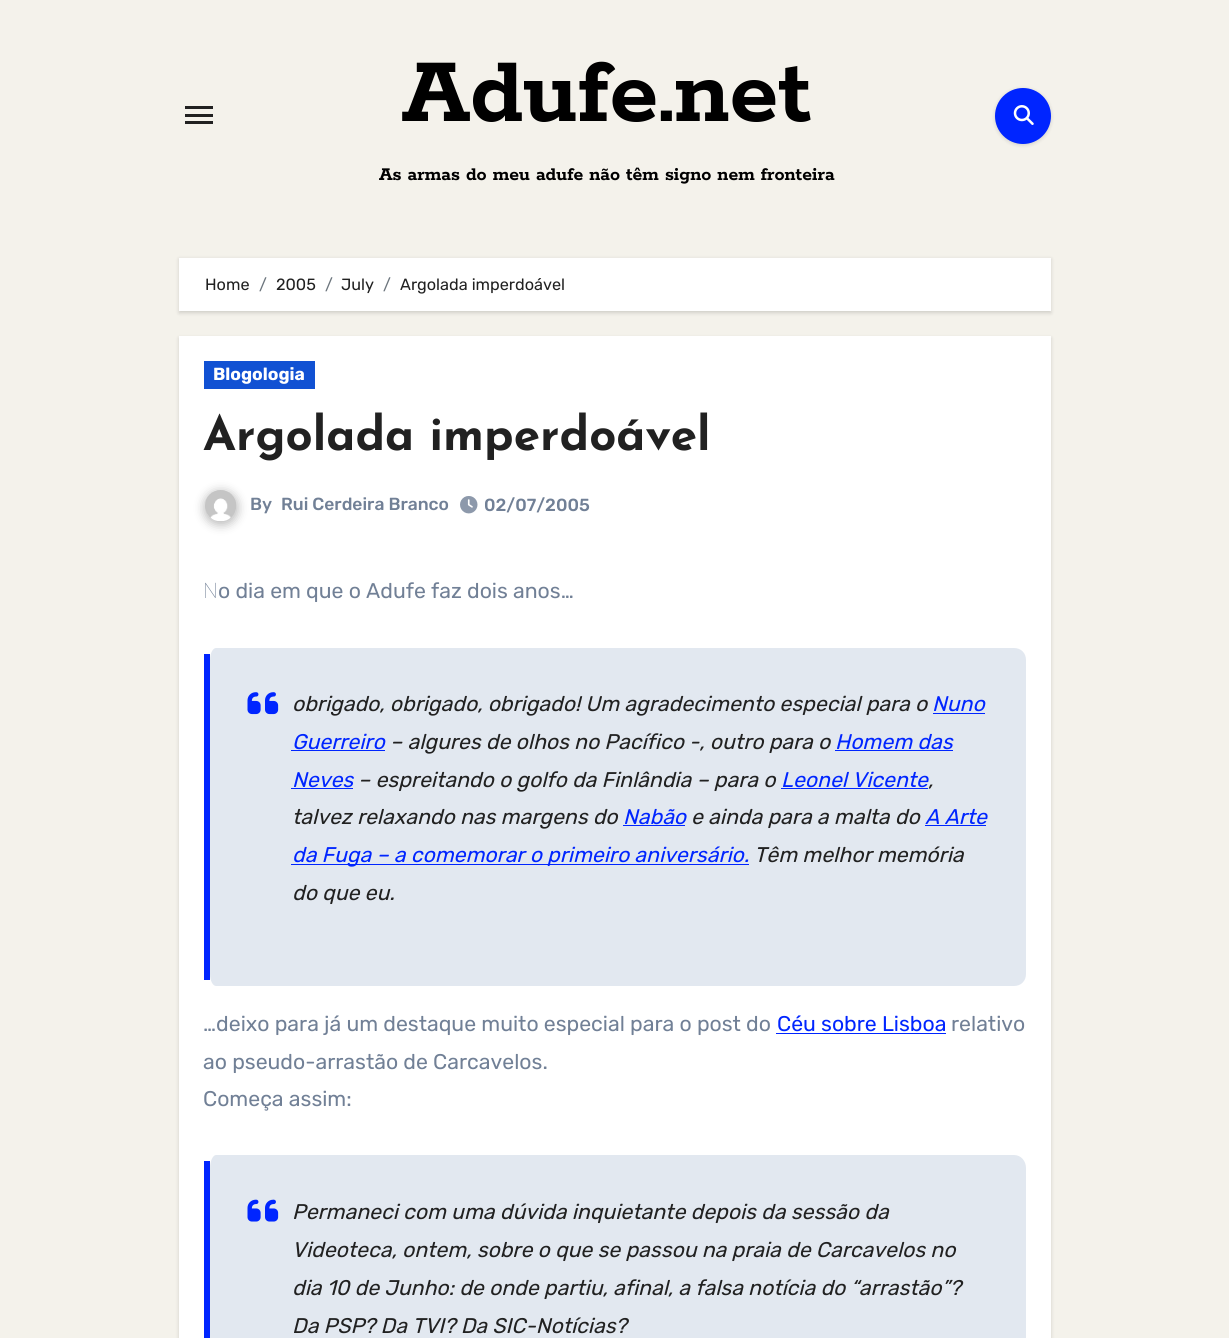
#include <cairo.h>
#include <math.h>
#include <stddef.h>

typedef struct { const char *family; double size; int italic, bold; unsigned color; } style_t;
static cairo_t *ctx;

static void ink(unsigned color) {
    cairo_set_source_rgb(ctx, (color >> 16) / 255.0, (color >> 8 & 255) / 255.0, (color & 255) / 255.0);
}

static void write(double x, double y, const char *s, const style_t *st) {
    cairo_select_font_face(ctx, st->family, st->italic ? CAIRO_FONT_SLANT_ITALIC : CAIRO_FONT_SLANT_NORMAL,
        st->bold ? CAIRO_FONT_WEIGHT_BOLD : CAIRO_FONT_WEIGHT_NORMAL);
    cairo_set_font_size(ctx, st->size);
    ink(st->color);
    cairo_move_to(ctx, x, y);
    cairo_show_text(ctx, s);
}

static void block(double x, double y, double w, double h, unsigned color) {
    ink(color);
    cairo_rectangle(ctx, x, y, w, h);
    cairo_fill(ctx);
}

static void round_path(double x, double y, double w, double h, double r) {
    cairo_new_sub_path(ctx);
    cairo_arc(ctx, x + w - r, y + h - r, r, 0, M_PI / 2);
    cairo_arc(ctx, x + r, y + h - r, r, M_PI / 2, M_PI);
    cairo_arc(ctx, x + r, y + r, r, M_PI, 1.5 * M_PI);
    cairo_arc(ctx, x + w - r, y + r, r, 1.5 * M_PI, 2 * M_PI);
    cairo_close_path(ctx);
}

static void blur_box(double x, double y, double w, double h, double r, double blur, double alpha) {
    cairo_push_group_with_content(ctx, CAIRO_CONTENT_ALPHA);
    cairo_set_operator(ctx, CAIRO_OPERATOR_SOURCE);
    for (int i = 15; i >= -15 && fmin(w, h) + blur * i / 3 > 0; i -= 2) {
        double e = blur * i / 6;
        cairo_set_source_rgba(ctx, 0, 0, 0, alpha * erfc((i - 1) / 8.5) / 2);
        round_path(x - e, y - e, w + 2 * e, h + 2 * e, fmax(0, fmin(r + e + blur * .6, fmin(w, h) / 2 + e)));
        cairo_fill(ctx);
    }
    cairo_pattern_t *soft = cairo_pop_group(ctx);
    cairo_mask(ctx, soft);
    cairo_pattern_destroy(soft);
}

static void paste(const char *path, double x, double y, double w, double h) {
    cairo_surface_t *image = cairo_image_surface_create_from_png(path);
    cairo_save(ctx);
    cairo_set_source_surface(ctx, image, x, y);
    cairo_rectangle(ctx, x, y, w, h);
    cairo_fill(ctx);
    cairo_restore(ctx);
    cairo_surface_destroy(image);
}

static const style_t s1 = {"Rokkitt", 100, 0, 1, 0x000000};
static const style_t s2 = {"Rokkitt", 20, 0, 1, 0x000000};
static const style_t s3 = {"Rubik Light", 16.25, 0, 0, 0x212121};
static const style_t s4 = {"Rubik Light", 16.25, 0, 0, 0x6c757d};
static const style_t s5 = {"Rubik", 17.5, 0, 1, 0xffffff};
static const style_t s6 = {"Josefin Sans", 47.5, 0, 1, 0x212121};
static const style_t s7 = {"Rubik Medium", 17.5, 0, 0, 0x718096};
static const style_t s8 = {"Noto Sans Thin", 21.25, 0, 0, 0x718096};
static const style_t s9 = {"Rubik Light", 21.25, 0, 0, 0x718096};
static const style_t s10 = {"Rubik Light", 21.25, 1, 0, 0x212121};
static const style_t s11 = {"Rubik Light", 21.25, 1, 0, 0x0025ff};
static const style_t s12 = {"Rubik Light", 21.25, 0, 0, 0x0025ff};

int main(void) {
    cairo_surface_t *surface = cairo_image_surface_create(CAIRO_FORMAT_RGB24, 1229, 1338);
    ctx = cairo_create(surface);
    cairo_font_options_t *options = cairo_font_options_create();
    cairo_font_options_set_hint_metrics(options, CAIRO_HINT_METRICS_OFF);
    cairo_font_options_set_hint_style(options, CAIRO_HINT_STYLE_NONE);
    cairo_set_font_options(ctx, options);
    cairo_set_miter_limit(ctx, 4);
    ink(0xf4f2eb);
    cairo_paint(ctx);
    block(185, 106, 28, 3, 0x212121);
    block(185, 114, 28, 3, 0x212121);
    block(185, 121, 28, 3, 0x212121);
    write(402, 121, "Adufe.net", &s1);
    write(379, 180, "As armas do meu adufe não têm signo nem fronteira", &s2);
    ink(0x000000);
    blur_box(995, 89, 56, 56, 28, 2, 0.15);
    ink(0x0025ff);
    cairo_arc(ctx, 1023, 116, 28, 0, 2 * M_PI);
    cairo_fill(ctx);
    paste("pic1.png", 1013, 105, 21, 20);
    ink(0x000000);
    blur_box(179, 259, 872, 54, 0, 2, 0.15);
    block(179, 258, 872, 53, 0xffffff);
    write(205, 290, "Home", &s3);
    write(259, 290, "/", &s4);
    write(276, 290, "2005", &s3);
    write(325, 290, "/", &s4);
    write(341, 290, "July", &s3);
    write(383, 290, "/", &s4);
    write(400, 290, "Argolada imperdoável", &s3);
    ink(0x000000);
    blur_box(179, 338, 872, 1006, 0, 2, 0.15);
    block(179, 336, 872, 1002, 0xffffff);
    block(204, 361, 111, 28, 0x1151d3);
    write(213, 380, "Blogologia", &s5);
    write(203, 450, "Argolada imperdoável", &s6);
    ink(0x212121);
    blur_box(204, 491, 34, 34, 17, 5, 0.3);
    paste("pic2.png", 205, 490, 31, 31);
    write(250, 510, "By", &s7);
    write(281, 510, "Rui Cerdeira Branco", &s7);
    paste("pic3.png", 460, 496, 18, 18);
    write(484, 511, "02/07/2005", &s7);
    write(203, 598, "N", &s8);
    write(218, 598, "o dia em que o Adufe faz dois anos…", &s9);
    ink(0xe2e8f0);
    cairo_new_path(ctx);
    cairo_move_to(ctx, 216, 648);
    cairo_line_to(ctx, 1014, 648);
    cairo_curve_to(ctx, 1021, 648, 1026, 653, 1026, 660);
    cairo_line_to(ctx, 1026, 974);
    cairo_curve_to(ctx, 1026, 981, 1021, 986, 1014, 986);
    cairo_line_to(ctx, 216, 986);
    cairo_curve_to(ctx, 213, 986, 210, 981, 210, 974);
    cairo_line_to(ctx, 210, 660);
    cairo_curve_to(ctx, 210, 653, 213, 648, 216, 648);
    cairo_close_path(ctx);
    cairo_fill(ctx);
    block(204, 654, 6, 326, 0x0025ff);
    paste("pic4.png", 247, 692, 32, 23);
    write(292, 711, "obrigado, obrigado, obrigado! Um agradecimento especial para o", &s10);
    write(932, 711, "Nuno", &s11);
    block(933, 713, 52, 1, 0x0025ff);
    write(292, 749, "Guerreiro", &s11);
    block(291, 750, 94, 1, 0x0025ff);
    write(390, 749, "– algures de olhos no Pacífico -, outro para o", &s10);
    write(835, 749, "Homem das", &s11);
    block(835, 750, 118, 1, 0x0025ff);
    write(292, 787, "Neves", &s11);
    block(291, 788, 62, 1, 0x0025ff);
    write(358, 787, "– espreitando o golfo da Finlândia – para o", &s10);
    write(781, 787, "Leonel Vicente", &s11);
    block(781, 788, 147, 1, 0x0025ff);
    write(928, 787, ",", &s10);
    write(292, 824, "talvez relaxando nas margens do", &s10);
    write(623, 824, "Nabão", &s11);
    block(623, 825, 62, 1, 0x0025ff);
    write(691, 824, "e ainda para a malta do", &s10);
    write(925, 824, "A Arte", &s11);
    block(925, 825, 61, 1, 0x0025ff);
    block(291, 864, 458, 1, 0x0025ff);
    write(292, 862, "da Fuga – a comemorar o primeiro aniversário.", &s11);
    write(754, 862, "Têm melhor memória", &s10);
    write(292, 900, "do que eu.", &s10);
    write(203, 1031, "…deixo para já um destaque muito especial para o post do", &s9);
    write(777, 1031, "Céu sobre Lisboa", &s12);
    block(776, 1033, 170, 1, 0x0025ff);
    write(951, 1031, "relativo", &s9);
    write(203, 1069, "ao pseudo-arrastão de Carcavelos.", &s9);
    write(203, 1106, "Começa assim:", &s9);
    ink(0xe2e8f0);
    cairo_new_path(ctx);
    cairo_move_to(ctx, 216, 1155);
    cairo_line_to(ctx, 1014, 1155);
    cairo_curve_to(ctx, 1021, 1155, 1026, 1161, 1026, 1168);
    cairo_line_to(ctx, 1026, 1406);
    cairo_curve_to(ctx, 1026, 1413, 1021, 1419, 1014, 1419);
    cairo_line_to(ctx, 216, 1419);
    cairo_curve_to(ctx, 213, 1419, 210, 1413, 210, 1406);
    cairo_line_to(ctx, 210, 1168);
    cairo_curve_to(ctx, 210, 1161, 213, 1155, 216, 1155);
    cairo_close_path(ctx);
    cairo_fill(ctx);
    block(204, 1161, 6, 177, 0x0025ff);
    paste("pic5.png", 247, 1199, 32, 23);
    write(292, 1219, "Permaneci com uma dúvida inquietante depois da sessão da", &s10);
    write(292, 1257, "Videoteca, ontem, sobre o que se passou na praia de Carcavelos no", &s10);
    write(292, 1295, "dia 10 de Junho: de onde partiu, afinal, a falsa notícia do “arrastão”?", &s10);
    write(292, 1333, "Da PSP? Da TVI? Da SIC-Notícias?", &s10);
    cairo_surface_write_to_png(surface, "screenshot.png");
    cairo_font_options_destroy(options);
    cairo_destroy(ctx);
    cairo_surface_destroy(surface);
    return 0;
}
